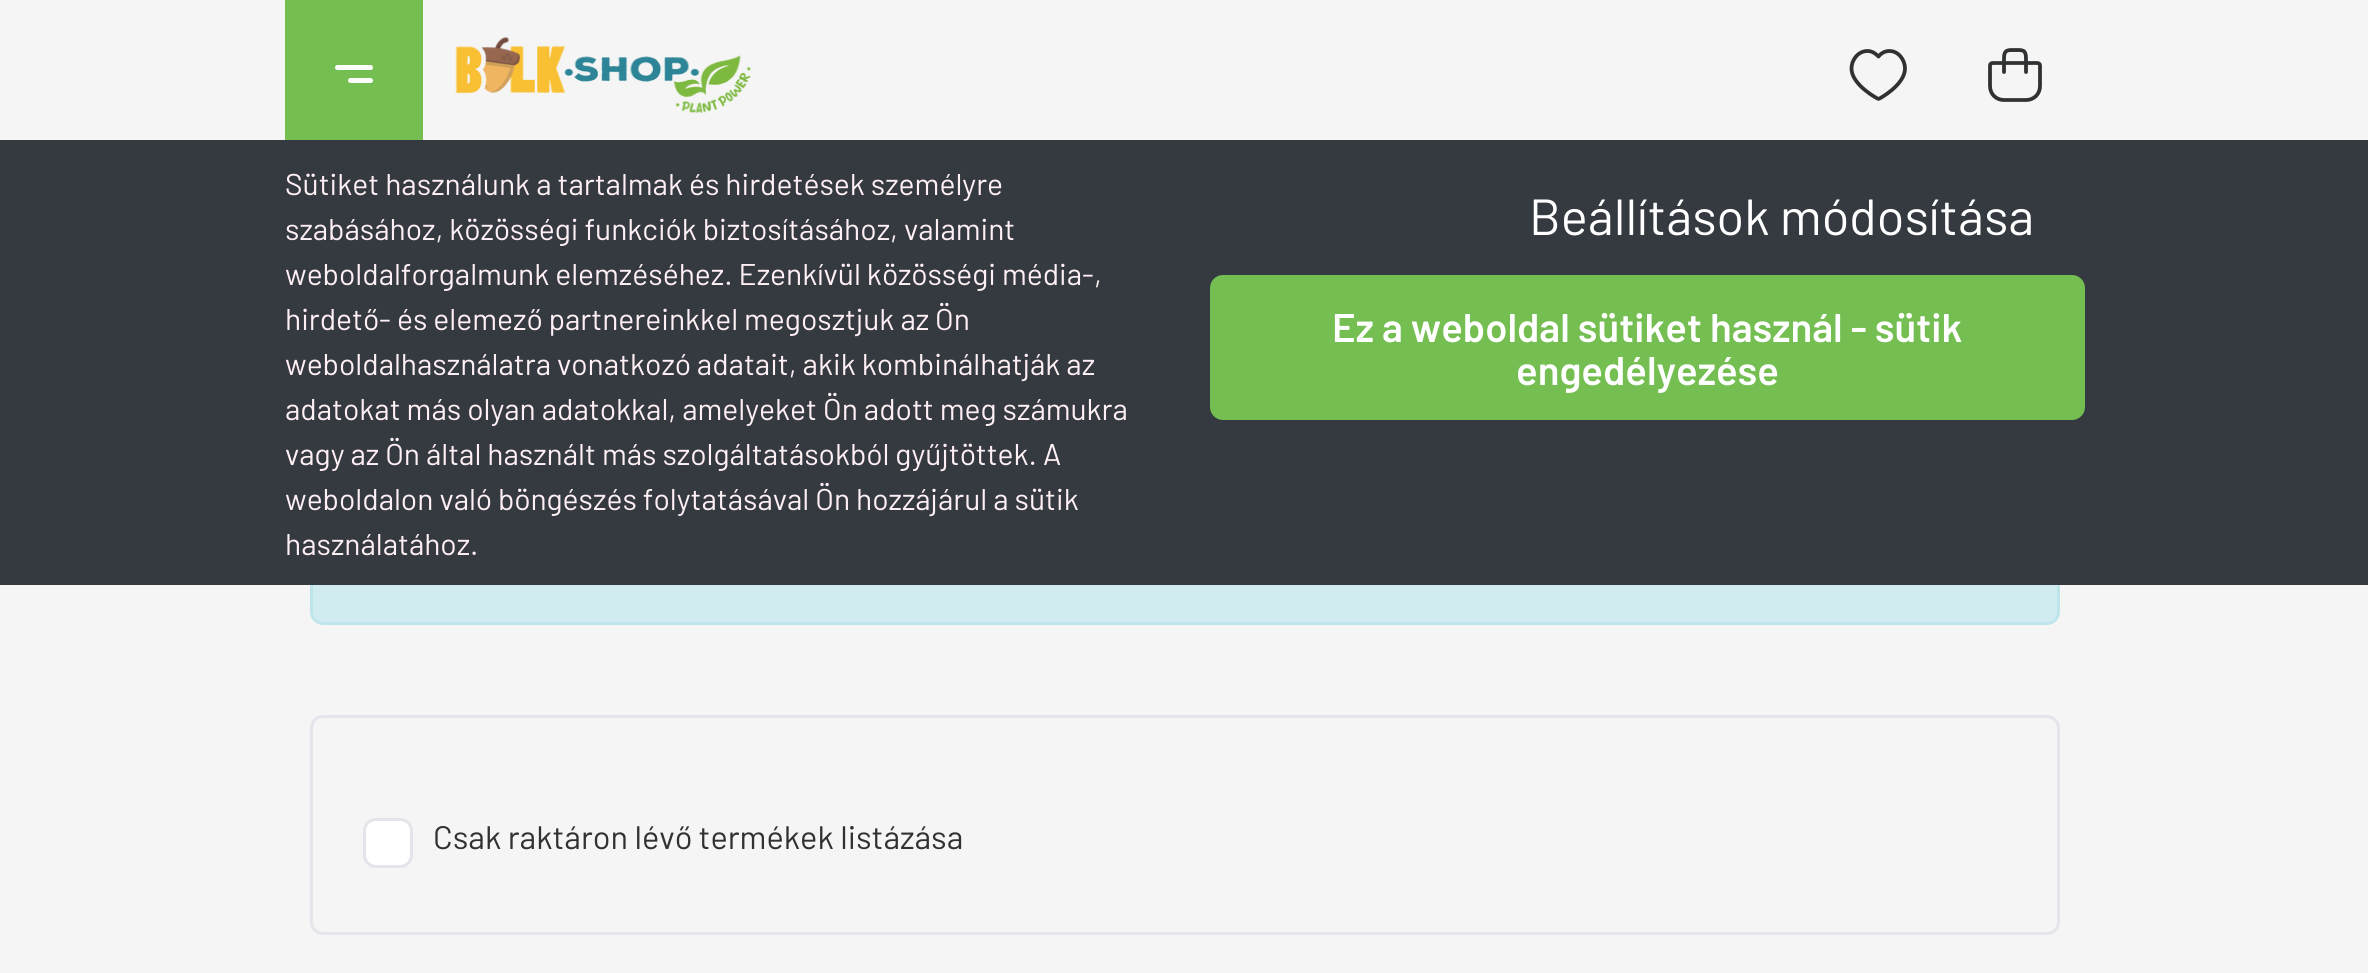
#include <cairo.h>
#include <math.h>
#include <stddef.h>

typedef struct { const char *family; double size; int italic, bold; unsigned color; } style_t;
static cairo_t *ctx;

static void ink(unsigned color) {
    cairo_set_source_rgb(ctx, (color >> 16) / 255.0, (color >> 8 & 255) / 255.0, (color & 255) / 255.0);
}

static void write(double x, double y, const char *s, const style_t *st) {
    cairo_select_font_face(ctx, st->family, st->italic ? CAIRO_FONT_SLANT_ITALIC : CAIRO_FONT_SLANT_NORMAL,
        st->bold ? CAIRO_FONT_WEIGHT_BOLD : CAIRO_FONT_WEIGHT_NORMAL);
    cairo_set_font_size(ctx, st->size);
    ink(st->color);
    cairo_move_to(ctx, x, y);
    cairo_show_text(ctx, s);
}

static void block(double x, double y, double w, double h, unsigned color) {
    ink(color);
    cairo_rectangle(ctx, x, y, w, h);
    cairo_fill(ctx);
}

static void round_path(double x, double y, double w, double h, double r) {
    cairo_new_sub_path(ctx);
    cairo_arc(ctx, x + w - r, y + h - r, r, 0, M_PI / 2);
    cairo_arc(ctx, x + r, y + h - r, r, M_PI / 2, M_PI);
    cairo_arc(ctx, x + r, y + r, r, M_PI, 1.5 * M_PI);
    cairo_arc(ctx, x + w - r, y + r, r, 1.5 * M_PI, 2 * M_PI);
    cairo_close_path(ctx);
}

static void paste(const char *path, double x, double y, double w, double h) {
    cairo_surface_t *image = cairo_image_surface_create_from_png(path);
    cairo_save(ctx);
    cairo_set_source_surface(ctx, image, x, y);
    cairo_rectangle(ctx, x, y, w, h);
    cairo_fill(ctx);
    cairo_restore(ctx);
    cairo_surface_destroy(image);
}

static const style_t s1 = {"Barlow", 30, 0, 0, 0xfff0f5};
static const style_t s2 = {"Barlow", 50.75, 0, 0, 0xffffff};
static const style_t s3 = {"Barlow SemiBold", 40, 0, 0, 0xffffff};
static const style_t s4 = {"Barlow", 32.5, 0, 0, 0x2f3132};

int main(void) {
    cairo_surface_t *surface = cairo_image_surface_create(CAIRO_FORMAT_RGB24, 2368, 973);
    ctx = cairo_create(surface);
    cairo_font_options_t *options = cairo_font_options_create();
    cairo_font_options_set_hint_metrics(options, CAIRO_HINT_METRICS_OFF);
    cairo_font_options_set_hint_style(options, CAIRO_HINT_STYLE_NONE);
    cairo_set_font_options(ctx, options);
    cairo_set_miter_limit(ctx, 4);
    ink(0xf5f5f5);
    cairo_paint(ctx);
    ink(0xd1ecf1);
    round_path(311.5, 509.5, 1747, 114, 11.5);
    cairo_fill_preserve(ctx);
    ink(0xbee5eb);
    cairo_set_line_width(ctx, 3);
    cairo_stroke(ctx);
    block(0, 140, 2368, 445, 0x343a40);
    write(285, 195, "Sütiket használunk a tartalmak és hirdetések személyre", &s1);
    write(285, 240, "szabásához, közösségi funkciók biztosításához, valamint", &s1);
    write(285, 285, "weboldalforgalmunk elemzéséhez. Ezenkívül közösségi média-,", &s1);
    write(285, 330, "hirdető- és elemező partnereinkkel megosztjuk az Ön", &s1);
    write(285, 375, "weboldalhasználatra vonatkozó adatait, akik kombinálhatják az", &s1);
    write(285, 420, "adatokat más olyan adatokkal, amelyeket Ön adott meg számukra", &s1);
    write(285, 465, "vagy az Ön által használt más szolgáltatásokból gyűjtöttek. A", &s1);
    write(285, 510, "weboldalon való böngészés folytatásával Ön hozzájárul a sütik", &s1);
    write(285, 555, "használatához.", &s1);
    write(1529, 235, "Beállítások módosítása", &s2);
    ink(0x74be52);
    round_path(1210, 275, 875, 145, 13);
    cairo_fill(ctx);
    write(1332, 342, "Ez a weboldal sütiket használ - sütik", &s3);
    write(1516, 385, "engedélyezése", &s3);
    block(285, 0, 138, 140, 0x74be52);
    ink(0xffffff);
    round_path(335, 65, 38, 5, 2.5);
    cairo_fill(ctx);
    round_path(348, 78, 25, 5, 2.5);
    cairo_fill(ctx);
    paste("pic1.png", 455, 37, 296, 77);
    cairo_new_path(ctx);
    cairo_move_to(ctx, 1889.5, 51);
    cairo_curve_to(ctx, 1898.5, 51, 1905, 60, 1905, 68.5);
    cairo_curve_to(ctx, 1905, 85, 1879, 99, 1878.5, 99);
    cairo_curve_to(ctx, 1878, 99, 1851.5, 85, 1851.5, 68.5);
    cairo_curve_to(ctx, 1851.5, 60, 1858, 51, 1867.5, 51);
    cairo_curve_to(ctx, 1872.5, 51, 1876, 54, 1878.5, 56.5);
    cairo_curve_to(ctx, 1880.5, 54, 1884, 51, 1889.5, 51);
    cairo_close_path(ctx);
    ink(0x2f3132);
    cairo_set_line_width(ctx, 3.8);
    cairo_set_line_cap(ctx, CAIRO_LINE_CAP_ROUND);
    cairo_set_line_join(ctx, CAIRO_LINE_JOIN_ROUND);
    cairo_stroke(ctx);
    cairo_new_path(ctx);
    cairo_move_to(ctx, 2026, 72);
    cairo_line_to(ctx, 2026, 58.5);
    cairo_curve_to(ctx, 2026, 49.5, 2022.5, 50, 2015, 50);
    cairo_curve_to(ctx, 2007.5, 50, 2004, 49.5, 2004, 58.5);
    cairo_line_to(ctx, 2004, 72);
    cairo_move_to(ctx, 2026, 100);
    cairo_line_to(ctx, 2004, 100);
    cairo_curve_to(ctx, 1996, 100, 1990, 94, 1990, 86);
    cairo_line_to(ctx, 1990, 65.5);
    cairo_curve_to(ctx, 1990, 64, 1991, 63, 1993, 63);
    cairo_line_to(ctx, 2037, 63);
    cairo_curve_to(ctx, 2039, 63, 2040, 64, 2040, 65.5);
    cairo_line_to(ctx, 2040, 86);
    cairo_curve_to(ctx, 2040, 94, 2034, 100, 2026, 100);
    cairo_close_path(ctx);
    cairo_stroke(ctx);
    round_path(311.5, 716.5, 1747, 217, 11.5);
    ink(0xe4e4ea);
    cairo_set_line_width(ctx, 3);
    cairo_set_line_cap(ctx, CAIRO_LINE_CAP_BUTT);
    cairo_set_line_join(ctx, CAIRO_LINE_JOIN_MITER);
    cairo_stroke(ctx);
    ink(0xffffff);
    round_path(364.5, 819.5, 47, 47, 11.5);
    cairo_fill_preserve(ctx);
    ink(0xe4e4ea);
    cairo_stroke(ctx);
    write(433, 849, "Csak raktáron lévő termékek listázása", &s4);
    cairo_surface_write_to_png(surface, "screenshot.png");
    cairo_font_options_destroy(options);
    cairo_destroy(ctx);
    cairo_surface_destroy(surface);
    return 0;
}
